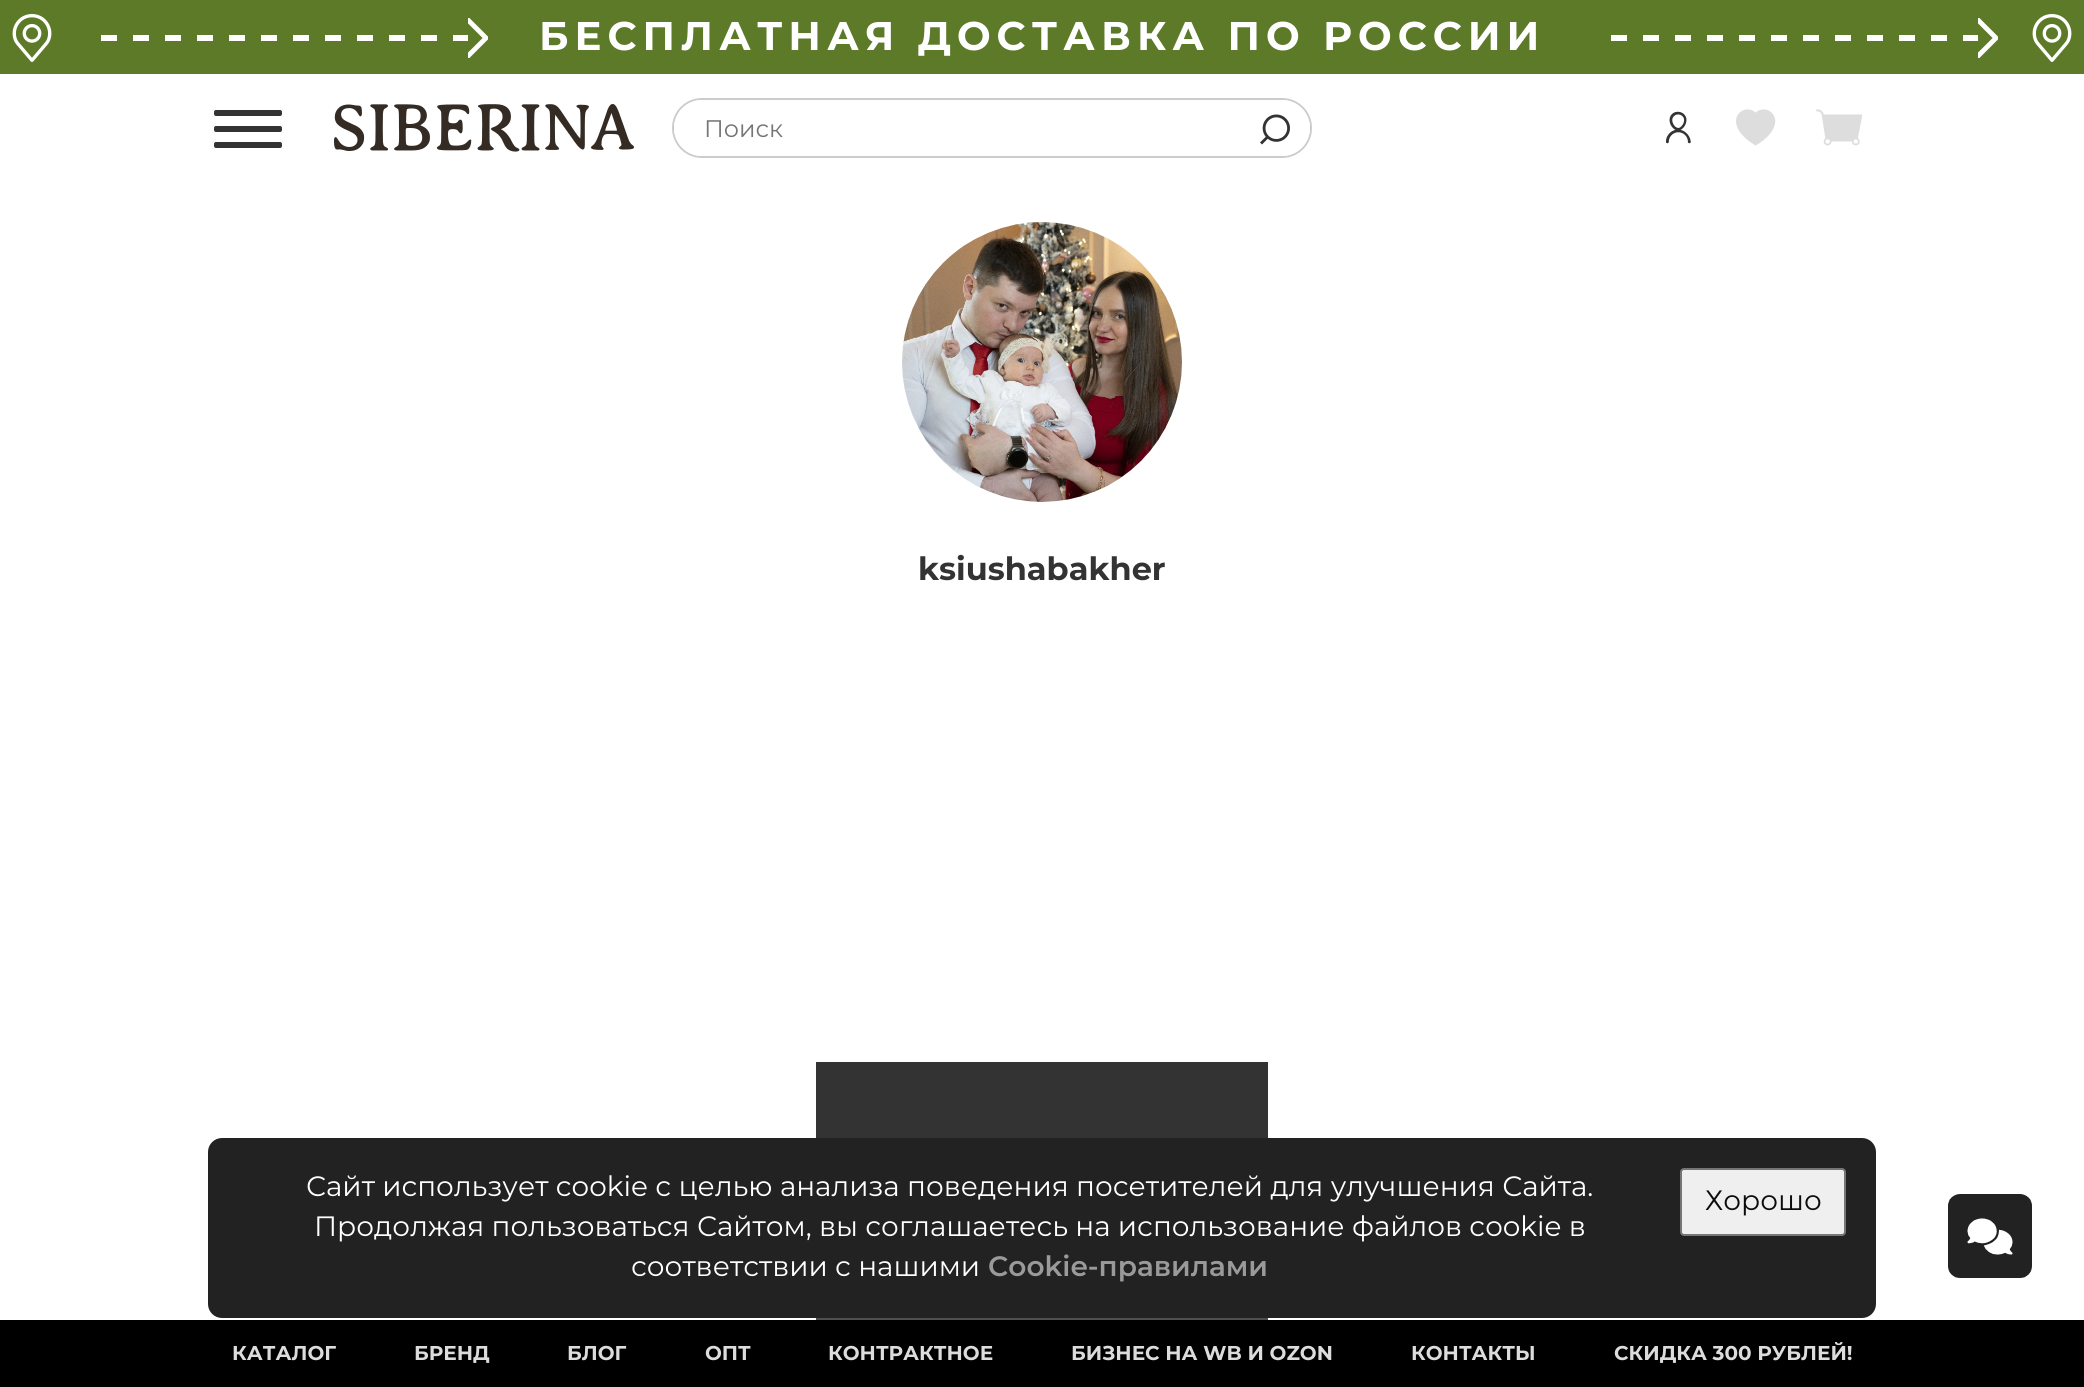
#include <cairo.h>
#include <math.h>
#include <stddef.h>

typedef struct { const char *family; double size; int italic, bold; unsigned color; } style_t;
static cairo_t *ctx;

static void ink(unsigned color) {
    cairo_set_source_rgb(ctx, (color >> 16) / 255.0, (color >> 8 & 255) / 255.0, (color & 255) / 255.0);
}

static void write(double x, double y, const char *s, const style_t *st) {
    cairo_select_font_face(ctx, st->family, st->italic ? CAIRO_FONT_SLANT_ITALIC : CAIRO_FONT_SLANT_NORMAL,
        st->bold ? CAIRO_FONT_WEIGHT_BOLD : CAIRO_FONT_WEIGHT_NORMAL);
    cairo_set_font_size(ctx, st->size);
    ink(st->color);
    cairo_move_to(ctx, x, y);
    cairo_show_text(ctx, s);
}

static void write_spaced(double x, double y, const char *s, double letter, double word) {
    cairo_move_to(ctx, x, y);
    while (*s) {
        char ch[5] = {0};
        int n = 0;
        do ch[n++] = *s++; while ((*s & 0xC0) == 0x80);
        cairo_show_text(ctx, ch);
        cairo_rel_move_to(ctx, letter + word * (*ch == ' '), 0);
    }
}

static void block(double x, double y, double w, double h, unsigned color) {
    ink(color);
    cairo_rectangle(ctx, x, y, w, h);
    cairo_fill(ctx);
}

static void round_path(double x, double y, double w, double h, double r) {
    cairo_new_sub_path(ctx);
    cairo_arc(ctx, x + w - r, y + h - r, r, 0, M_PI / 2);
    cairo_arc(ctx, x + r, y + h - r, r, M_PI / 2, M_PI);
    cairo_arc(ctx, x + r, y + r, r, M_PI, 1.5 * M_PI);
    cairo_arc(ctx, x + w - r, y + r, r, 1.5 * M_PI, 2 * M_PI);
    cairo_close_path(ctx);
}

static void paste(const char *path, double x, double y, double w, double h) {
    cairo_surface_t *image = cairo_image_surface_create_from_png(path);
    cairo_save(ctx);
    cairo_set_source_surface(ctx, image, x, y);
    cairo_rectangle(ctx, x, y, w, h);
    cairo_fill(ctx);
    cairo_restore(ctx);
    cairo_surface_destroy(image);
}

static const style_t s1 = {"Montserrat", 24, 0, 0, 0x757575};
static const style_t s2 = {"Montserrat", 32, 0, 1, 0x333333};
static const style_t s3 = {"Montserrat", 28, 0, 0, 0xffffff};
static const style_t s4 = {"Montserrat SemiBold", 28, 0, 0, 0x9a9a9a};
static const style_t s5 = {"Montserrat", 28, 0, 0, 0x0c0c0c};
static const style_t s6 = {"Montserrat", 20, 0, 1, 0xdcdcdc};

int main(void) {
    cairo_surface_t *surface = cairo_image_surface_create(CAIRO_FORMAT_RGB24, 2084, 1387);
    ctx = cairo_create(surface);
    cairo_font_options_t *options = cairo_font_options_create();
    cairo_font_options_set_hint_metrics(options, CAIRO_HINT_METRICS_OFF);
    cairo_font_options_set_hint_style(options, CAIRO_HINT_STYLE_NONE);
    cairo_set_font_options(ctx, options);
    cairo_set_miter_limit(ctx, 4);
    ink(0xffffff);
    cairo_paint(ctx);
    block(0, 0, 2084, 74, 0x5c7a28);
    paste("pic1.png", 12, 14, 40, 48);
    cairo_save(ctx);
    cairo_rectangle(ctx, 86, 28, 382, 20);
    cairo_clip(ctx);
    cairo_new_path(ctx);
    cairo_move_to(ctx, 469, 38);
    cairo_line_to(ctx, 86, 38);
    ink(0xffffff);
    cairo_set_line_width(ctx, 6);
    cairo_set_dash(ctx, (double[]){16, 16}, 2, 0);
    cairo_stroke(ctx);
    cairo_restore(ctx);
    cairo_save(ctx);
    cairo_rectangle(ctx, 468, 18, 20, 40);
    cairo_clip(ctx);
    ink(0xffffff);
    cairo_new_path(ctx);
    cairo_move_to(ctx, 468, 18);
    cairo_line_to(ctx, 488, 38);
    cairo_line_to(ctx, 468, 58);
    cairo_line_to(ctx, 466, 56);
    cairo_line_to(ctx, 484, 38);
    cairo_line_to(ctx, 466, 20);
    cairo_close_path(ctx);
    cairo_fill_preserve(ctx);
    cairo_stroke(ctx);
    cairo_restore(ctx);
    cairo_select_font_face(ctx, "Montserrat", CAIRO_FONT_SLANT_NORMAL, CAIRO_FONT_WEIGHT_BOLD);
    cairo_set_font_size(ctx, 40);
    ink(0xffffff);
    write_spaced(539, 50, "БЕСПЛАТНАЯ ДОСТАВКА ПО РОССИИ", 6, 0);
    cairo_save(ctx);
    cairo_rectangle(ctx, 1596, 28, 382, 20);
    cairo_clip(ctx);
    cairo_new_path(ctx);
    cairo_move_to(ctx, 1979, 38);
    cairo_line_to(ctx, 1596, 38);
    cairo_set_line_width(ctx, 6);
    cairo_set_dash(ctx, (double[]){16, 16}, 2, 0);
    cairo_stroke(ctx);
    cairo_restore(ctx);
    cairo_save(ctx);
    cairo_rectangle(ctx, 1978, 18, 20, 40);
    cairo_clip(ctx);
    cairo_new_path(ctx);
    cairo_move_to(ctx, 1978, 18);
    cairo_line_to(ctx, 1998, 38);
    cairo_line_to(ctx, 1978, 58);
    cairo_line_to(ctx, 1976, 56);
    cairo_line_to(ctx, 1994, 38);
    cairo_line_to(ctx, 1976, 20);
    cairo_close_path(ctx);
    cairo_fill_preserve(ctx);
    cairo_stroke(ctx);
    cairo_restore(ctx);
    paste("pic1.png", 2032, 14, 40, 48);
    ink(0x333333);
    round_path(214, 110, 68, 6, 2);
    cairo_fill(ctx);
    round_path(214, 126, 68, 6, 2);
    cairo_fill(ctx);
    round_path(214, 142, 68, 6, 2);
    cairo_fill(ctx);
    paste("pic2.png", 334, 104, 300, 48);
    round_path(673, 99, 638, 58, 29);
    ink(0xcccccc);
    cairo_stroke(ctx);
    ink(0xffffff);
    round_path(674, 100, 636, 56, 28);
    cairo_fill(ctx);
    write(704, 137, "Поиск", &s1);
    paste("pic3.png", 1260, 114, 30, 31);
    paste("pic4.png", 1665, 111, 26, 33);
    paste("pic5.png", 1736, 109, 40, 37);
    paste("pic6.png", 1816, 109, 47, 37);
    paste("pic7.png", 902, 222, 280, 280);
    write(918, 580, "ksiushabakher", &s2);
    paste("pic8.png", 816, 1062, 452, 258);
    ink(0x222222);
    round_path(208, 1138, 1668, 180, 14);
    cairo_fill(ctx);
    write(306, 1196, "Сайт использует cookie с целью анализа поведения посетителей для улучшения Сайта.", &s3);
    write(314, 1236, "Продолжая пользоваться Сайтом, вы соглашаетесь на использование файлов cookie в", &s3);
    write(631, 1276, "соответствии с нашими", &s3);
    write(988, 1276, "Cookie-правилами", &s4);
    ink(0xefefef);
    round_path(1681, 1169, 164, 66, 3);
    cairo_fill_preserve(ctx);
    ink(0x767676);
    cairo_stroke(ctx);
    write(1705, 1210, "Хорошо", &s5);
    block(0, 1320, 2084, 67, 0x000000);
    write(232, 1360, "КАТАЛОГ", &s6);
    write(414, 1360, "БРЕНД", &s6);
    write(567, 1360, "БЛОГ", &s6);
    write(705, 1360, "ОПТ", &s6);
    write(828, 1360, "КОНТРАКТНОЕ", &s6);
    write(1071, 1360, "БИЗНЕС НА WB И OZON", &s6);
    write(1411, 1360, "КОНТАКТЫ", &s6);
    write(1614, 1360, "СКИДКА 300 РУБЛЕЙ!", &s6);
    paste("pic9.png", 1948, 1194, 84, 84);
    cairo_surface_write_to_png(surface, "screenshot.png");
    cairo_font_options_destroy(options);
    cairo_destroy(ctx);
    cairo_surface_destroy(surface);
    return 0;
}
